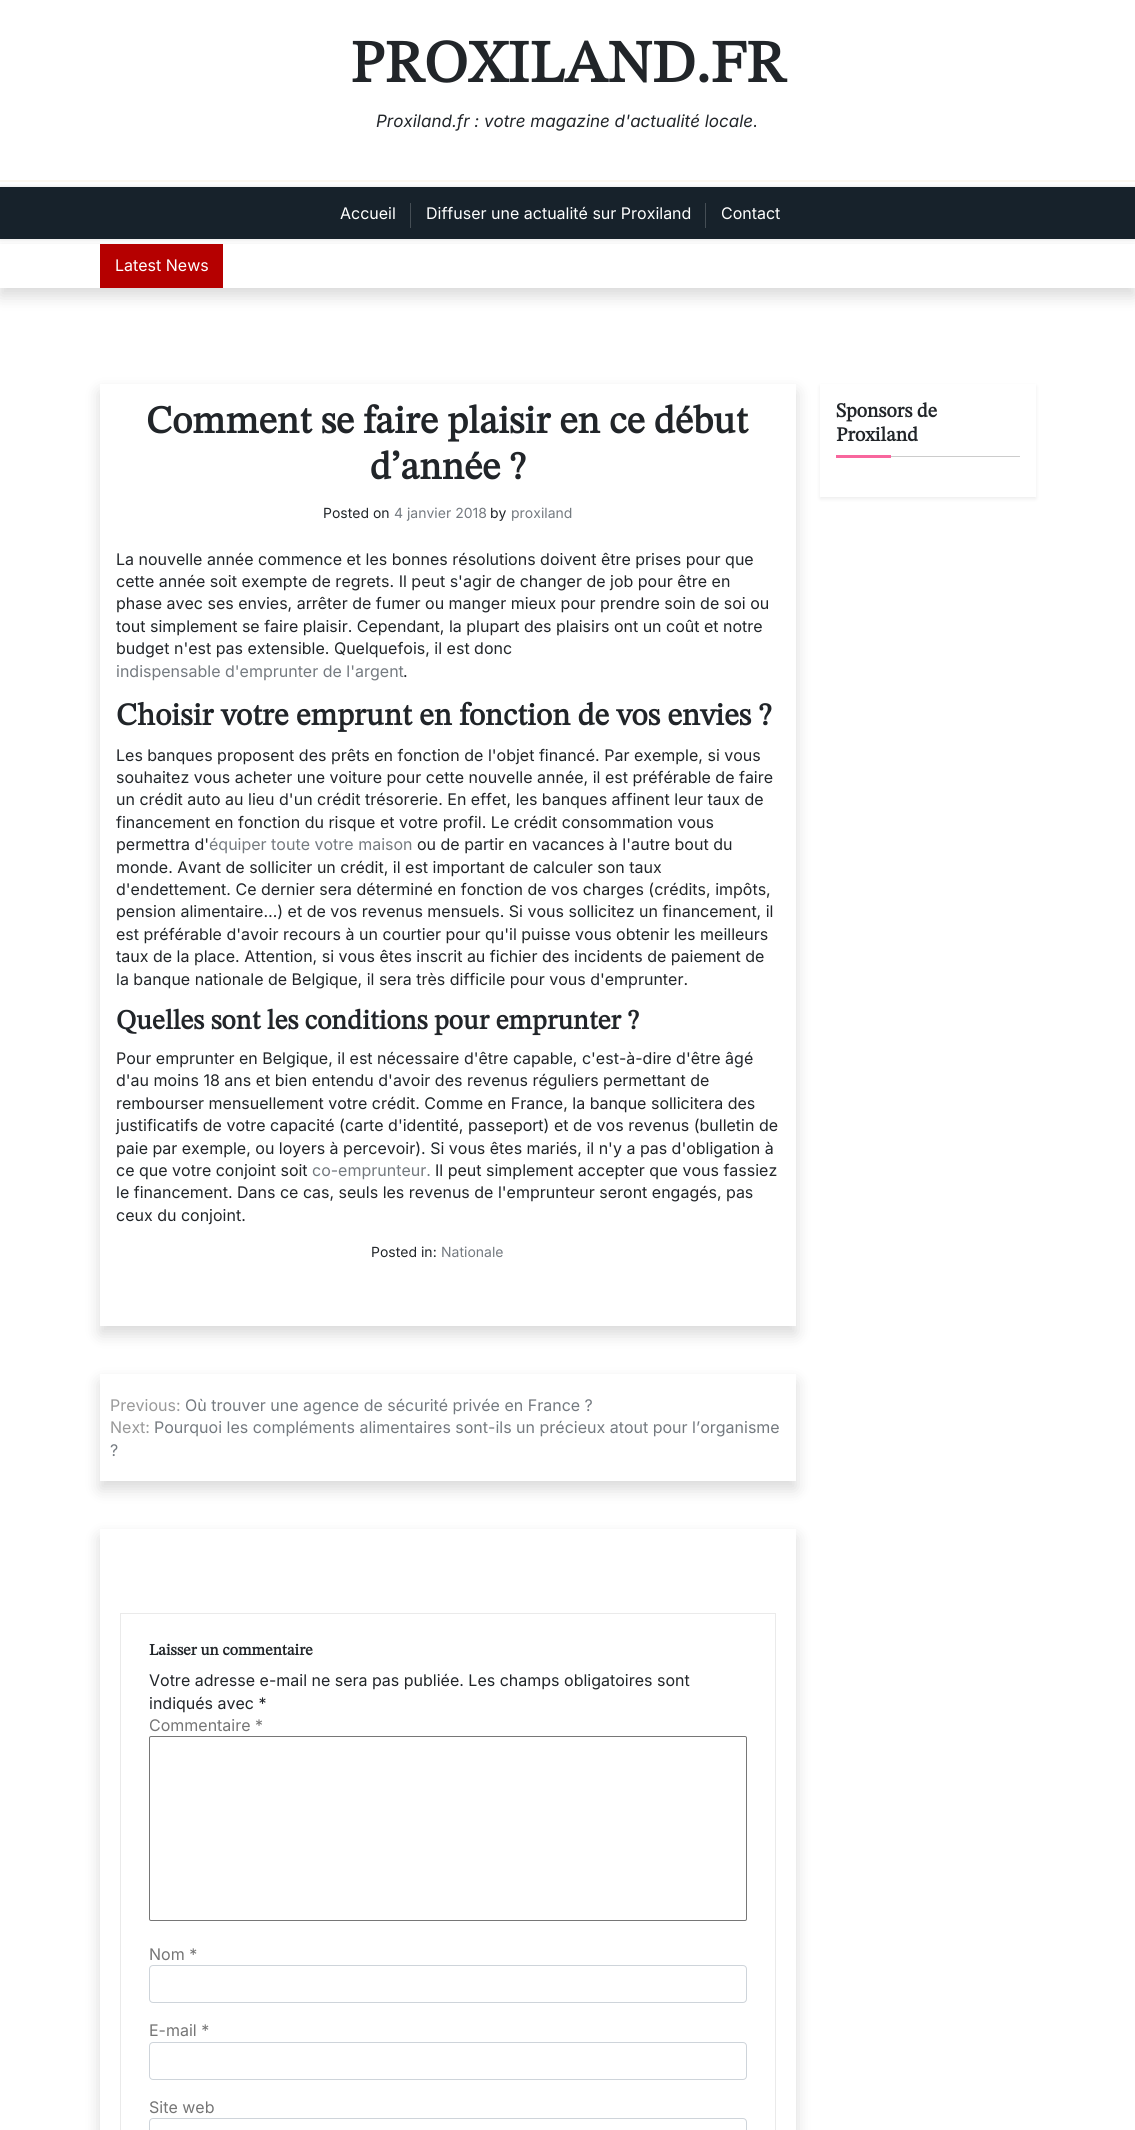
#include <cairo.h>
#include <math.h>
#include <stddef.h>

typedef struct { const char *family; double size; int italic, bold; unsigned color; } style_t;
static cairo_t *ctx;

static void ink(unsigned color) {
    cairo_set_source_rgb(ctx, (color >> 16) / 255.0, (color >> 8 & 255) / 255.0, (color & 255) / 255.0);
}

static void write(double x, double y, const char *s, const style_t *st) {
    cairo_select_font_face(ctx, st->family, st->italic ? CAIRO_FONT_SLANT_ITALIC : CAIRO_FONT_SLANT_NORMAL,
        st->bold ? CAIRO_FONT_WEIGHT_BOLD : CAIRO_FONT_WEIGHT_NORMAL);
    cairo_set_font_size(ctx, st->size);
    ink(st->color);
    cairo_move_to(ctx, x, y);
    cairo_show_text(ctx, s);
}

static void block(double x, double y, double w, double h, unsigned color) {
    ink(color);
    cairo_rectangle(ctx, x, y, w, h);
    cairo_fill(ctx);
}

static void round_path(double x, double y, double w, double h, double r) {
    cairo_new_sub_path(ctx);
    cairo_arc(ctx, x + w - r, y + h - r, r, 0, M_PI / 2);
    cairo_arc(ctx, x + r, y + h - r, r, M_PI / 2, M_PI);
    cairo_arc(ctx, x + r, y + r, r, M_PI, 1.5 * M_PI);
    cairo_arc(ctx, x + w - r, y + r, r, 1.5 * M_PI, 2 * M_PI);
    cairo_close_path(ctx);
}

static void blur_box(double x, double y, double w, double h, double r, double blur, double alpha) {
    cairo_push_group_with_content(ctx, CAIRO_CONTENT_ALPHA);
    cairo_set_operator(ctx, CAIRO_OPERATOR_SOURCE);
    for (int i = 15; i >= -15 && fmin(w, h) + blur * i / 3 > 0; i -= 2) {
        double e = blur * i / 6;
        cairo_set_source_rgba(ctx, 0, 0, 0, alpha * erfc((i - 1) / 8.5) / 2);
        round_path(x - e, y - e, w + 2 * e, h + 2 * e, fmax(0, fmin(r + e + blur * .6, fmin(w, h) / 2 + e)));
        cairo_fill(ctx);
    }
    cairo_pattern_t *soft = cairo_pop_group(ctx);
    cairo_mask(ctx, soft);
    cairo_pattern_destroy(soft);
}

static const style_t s1 = {"STIX Two Math", 60, 0, 1, 0x212529};
static const style_t s2 = {"Inter", 17, 1, 0, 0x212529};
static const style_t s3 = {"Inter", 16, 0, 0, 0xffffff};
static const style_t s4 = {"STIX Two Math", 39, 0, 1, 0x212529};
static const style_t s5 = {"Inter", 14, 0, 0, 0x212529};
static const style_t s6 = {"Inter", 14, 0, 0, 0x747a80};
static const style_t s7 = {"Inter", 16, 0, 0, 0x212529};
static const style_t s8 = {"Inter", 16, 0, 0, 0x747a80};
static const style_t s9 = {"STIX Two Math", 31.4, 0, 1, 0x212529};
static const style_t s10 = {"STIX Two Math", 27.6, 0, 1, 0x212529};
static const style_t s11 = {"Inter", 16, 0, 0, 0x999999};
static const style_t s12 = {"STIX Two Math", 16, 0, 1, 0x212529};
static const style_t s13 = {"Inter", 16, 0, 0, 0x757575};
static const style_t s14 = {"STIX Two Math", 20, 0, 1, 0x212529};

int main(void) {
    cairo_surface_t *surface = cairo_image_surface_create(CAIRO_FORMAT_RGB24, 1135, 2130);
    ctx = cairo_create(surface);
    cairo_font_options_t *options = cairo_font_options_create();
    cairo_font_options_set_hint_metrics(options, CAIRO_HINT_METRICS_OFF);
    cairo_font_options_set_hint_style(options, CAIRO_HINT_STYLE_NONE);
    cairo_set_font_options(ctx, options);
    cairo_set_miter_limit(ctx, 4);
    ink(0xffffff);
    cairo_paint(ctx);
    block(0, 180, 1135, 2, 0xfbf7ef);
    write(350, 82, "PROXILAND.FR", &s1);
    write(376, 127, "Proxiland.fr : votre magazine d'actualité locale.", &s2);
    cairo_save(ctx);
    cairo_set_fill_rule(ctx, CAIRO_FILL_RULE_EVEN_ODD);
    cairo_new_path(ctx);
    cairo_move_to(ctx, 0, 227);
    cairo_line_to(ctx, 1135, 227);
    cairo_line_to(ctx, 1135, 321);
    cairo_line_to(ctx, 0, 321);
    cairo_close_path(ctx);
    cairo_move_to(ctx, 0, 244);
    cairo_line_to(ctx, 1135, 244);
    cairo_line_to(ctx, 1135, 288);
    cairo_line_to(ctx, 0, 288);
    cairo_close_path(ctx);
    cairo_clip(ctx);
    ink(0x000000);
    blur_box(0, 252, 1135, 44, 0, 8, 0.15);
    cairo_restore(ctx);
    block(100, 244, 123, 44, 0xb50000);
    ink(0x000000);
    blur_box(0, 187, 1135, 52, 0, 2.5, 0.12);
    block(0, 187, 1135, 52, 0x17222b);
    write(340, 219, "Accueil", &s3);
    block(410, 203, 1, 25, 0x454e55);
    write(426, 219, "Diffuser une actualité sur Proxiland", &s3);
    block(705, 203, 1, 25, 0x454e55);
    write(721, 219, "Contact", &s3);
    write(115, 271, "Latest News", &s3);
    cairo_save(ctx);
    cairo_set_fill_rule(ctx, CAIRO_FILL_RULE_EVEN_ODD);
    cairo_new_path(ctx);
    cairo_move_to(ctx, 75, 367);
    cairo_line_to(ctx, 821, 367);
    cairo_line_to(ctx, 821, 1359);
    cairo_line_to(ctx, 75, 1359);
    cairo_close_path(ctx);
    cairo_move_to(ctx, 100, 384);
    cairo_line_to(ctx, 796, 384);
    cairo_line_to(ctx, 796, 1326);
    cairo_line_to(ctx, 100, 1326);
    cairo_close_path(ctx);
    cairo_clip(ctx);
    ink(0x000000);
    blur_box(100, 392, 696, 942, 0, 8, 0.15);
    cairo_restore(ctx);
    write(146, 433, "Comment se faire plaisir en ce début", &s4);
    write(370, 479, "d’année ?", &s4);
    write(323, 518, "Posted on", &s5);
    write(394, 518, "4 janvier 2018", &s6);
    write(490, 518, "by", &s5);
    write(511, 518, "proxiland", &s6);
    write(116, 565, "La nouvelle année commence et les bonnes résolutions doivent être prises pour que", &s7);
    write(116, 587, "cette année soit exempte de regrets. Il peut s'agir de changer de job pour être en", &s7);
    write(116, 609, "phase avec ses envies, arrêter de fumer ou manger mieux pour prendre soin de soi ou", &s7);
    write(116, 632, "tout simplement se faire plaisir. Cependant, la plupart des plaisirs ont un coût et notre", &s7);
    write(116, 654, "budget n'est pas extensible. Quelquefois, il est donc", &s7);
    write(116, 677, "indispensable d'emprunter de l'argent", &s8);
    write(403, 677, ".", &s7);
    write(116, 725, "Choisir votre emprunt en fonction de vos envies ?", &s9);
    write(116, 761, "Les banques proposent des prêts en fonction de l'objet financé. Par exemple, si vous", &s7);
    write(116, 783, "souhaitez vous acheter une voiture pour cette nouvelle année, il est préférable de faire", &s7);
    write(116, 805, "un crédit auto au lieu d'un crédit trésorerie. En effet, les banques affinent leur taux de", &s7);
    write(116, 828, "financement en fonction du risque et votre profil. Le crédit consommation vous", &s7);
    write(116, 850, "permettra d'", &s7);
    write(209, 850, "équiper toute votre maison", &s8);
    write(417, 850, "ou de partir en vacances à l'autre bout du", &s7);
    write(116, 873, "monde. Avant de solliciter un crédit, il est important de calculer son taux", &s7);
    write(116, 895, "d'endettement. Ce dernier sera déterminé en fonction de vos charges (crédits, impôts,", &s7);
    write(116, 917, "pension alimentaire…) et de vos revenus mensuels. Si vous sollicitez un financement, il", &s7);
    write(116, 940, "est préférable d'avoir recours à un courtier pour qu'il puisse vous obtenir les meilleurs", &s7);
    write(116, 962, "taux de la place. Attention, si vous êtes inscrit au fichier des incidents de paiement de", &s7);
    write(116, 985, "la banque nationale de Belgique, il sera très difficile pour vous d'emprunter.", &s7);
    write(116, 1029, "Quelles sont les conditions pour emprunter ?", &s10);
    write(116, 1064, "Pour emprunter en Belgique, il est nécessaire d'être capable, c'est-à-dire d'être âgé", &s7);
    write(116, 1086, "d'au moins 18 ans et bien entendu d'avoir des revenus réguliers permettant de", &s7);
    write(116, 1109, "rembourser mensuellement votre crédit. Comme en France, la banque sollicitera des", &s7);
    write(116, 1131, "justificatifs de votre capacité (carte d'identité, passeport) et de vos revenus (bulletin de", &s7);
    write(116, 1154, "paie par exemple, ou loyers à percevoir). Si vous êtes mariés, il n'y a pas d'obligation à", &s7);
    write(116, 1176, "ce que votre conjoint soit", &s7);
    write(312, 1176, "co-emprunteur.", &s8);
    write(435, 1176, "Il peut simplement accepter que vous fassiez", &s7);
    write(116, 1198, "le financement. Dans ce cas, seuls les revenus de l'emprunteur seront engagés, pas", &s7);
    write(116, 1221, "ceux du conjoint.", &s7);
    write(371, 1257, "Posted in:", &s5);
    write(441, 1257, "Nationale", &s6);
    cairo_save(ctx);
    cairo_set_fill_rule(ctx, CAIRO_FILL_RULE_EVEN_ODD);
    cairo_new_path(ctx);
    cairo_move_to(ctx, 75, 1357);
    cairo_line_to(ctx, 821, 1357);
    cairo_line_to(ctx, 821, 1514);
    cairo_line_to(ctx, 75, 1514);
    cairo_close_path(ctx);
    cairo_move_to(ctx, 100, 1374);
    cairo_line_to(ctx, 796, 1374);
    cairo_line_to(ctx, 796, 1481);
    cairo_line_to(ctx, 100, 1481);
    cairo_close_path(ctx);
    cairo_clip(ctx);
    ink(0x000000);
    blur_box(100, 1382, 696, 107, 0, 8, 0.15);
    cairo_restore(ctx);
    write(110, 1411, "Previous:", &s11);
    write(185, 1411, "Où trouver une agence de sécurité privée en France ?", &s8);
    write(110, 1433, "Next:", &s11);
    write(154, 1433, "Pourquoi les compléments alimentaires sont-ils un précieux atout pour l’organisme", &s8);
    write(110, 1456, "?", &s8);
    cairo_save(ctx);
    cairo_set_fill_rule(ctx, CAIRO_FILL_RULE_EVEN_ODD);
    cairo_new_path(ctx);
    cairo_move_to(ctx, 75, 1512);
    cairo_line_to(ctx, 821, 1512);
    cairo_line_to(ctx, 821, 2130);
    cairo_line_to(ctx, 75, 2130);
    cairo_close_path(ctx);
    cairo_move_to(ctx, 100, 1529);
    cairo_line_to(ctx, 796, 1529);
    cairo_line_to(ctx, 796, 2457);
    cairo_line_to(ctx, 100, 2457);
    cairo_close_path(ctx);
    cairo_clip(ctx);
    ink(0x000000);
    blur_box(100, 1537, 696, 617, 0, 8, 0.15);
    cairo_restore(ctx);
    cairo_rectangle(ctx, 120.5, 1613.5, 655, 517);
    ink(0xeaeaea);
    cairo_set_line_width(ctx, 1);
    cairo_stroke(ctx);
    write(149, 1655, "Laisser un commentaire", &s12);
    write(149, 1686, "Votre adresse e-mail ne sera pas publiée. Les champs obligatoires sont", &s7);
    write(149, 1709, "indiqués avec *", &s7);
    write(149, 1731, "Commentaire *", &s13);
    round_path(149.5, 1736.5, 597, 184, 1.5);
    ink(0x767676);
    cairo_stroke(ctx);
    write(149, 1960, "Nom *", &s13);
    round_path(149.5, 1965.5, 597, 37, 3.5);
    ink(0xced4da);
    cairo_stroke(ctx);
    write(149, 2036, "E-mail *", &s13);
    round_path(149.5, 2042.5, 597, 37, 3.5);
    ink(0xced4da);
    cairo_stroke(ctx);
    write(149, 2113, "Site web", &s13);
    round_path(149.5, 2118.5, 597, 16, 3.5);
    ink(0xced4da);
    cairo_stroke(ctx);
    cairo_save(ctx);
    cairo_set_fill_rule(ctx, CAIRO_FILL_RULE_EVEN_ODD);
    cairo_new_path(ctx);
    cairo_move_to(ctx, 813, 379);
    cairo_line_to(ctx, 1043, 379);
    cairo_line_to(ctx, 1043, 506);
    cairo_line_to(ctx, 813, 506);
    cairo_close_path(ctx);
    cairo_move_to(ctx, 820, 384);
    cairo_line_to(ctx, 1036, 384);
    cairo_line_to(ctx, 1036, 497);
    cairo_line_to(ctx, 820, 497);
    cairo_close_path(ctx);
    cairo_clip(ctx);
    ink(0x000000);
    blur_box(820, 386, 216, 113, 0, 2, 0.07);
    cairo_restore(ctx);
    block(891, 456, 129, 1, 0xcccccc);
    write(836, 417, "Sponsors de", &s14);
    write(836, 441, "Proxiland", &s14);
    block(836, 455, 55, 3, 0xf8669d);
    cairo_surface_write_to_png(surface, "screenshot.png");
    cairo_font_options_destroy(options);
    cairo_destroy(ctx);
    cairo_surface_destroy(surface);
    return 0;
}
